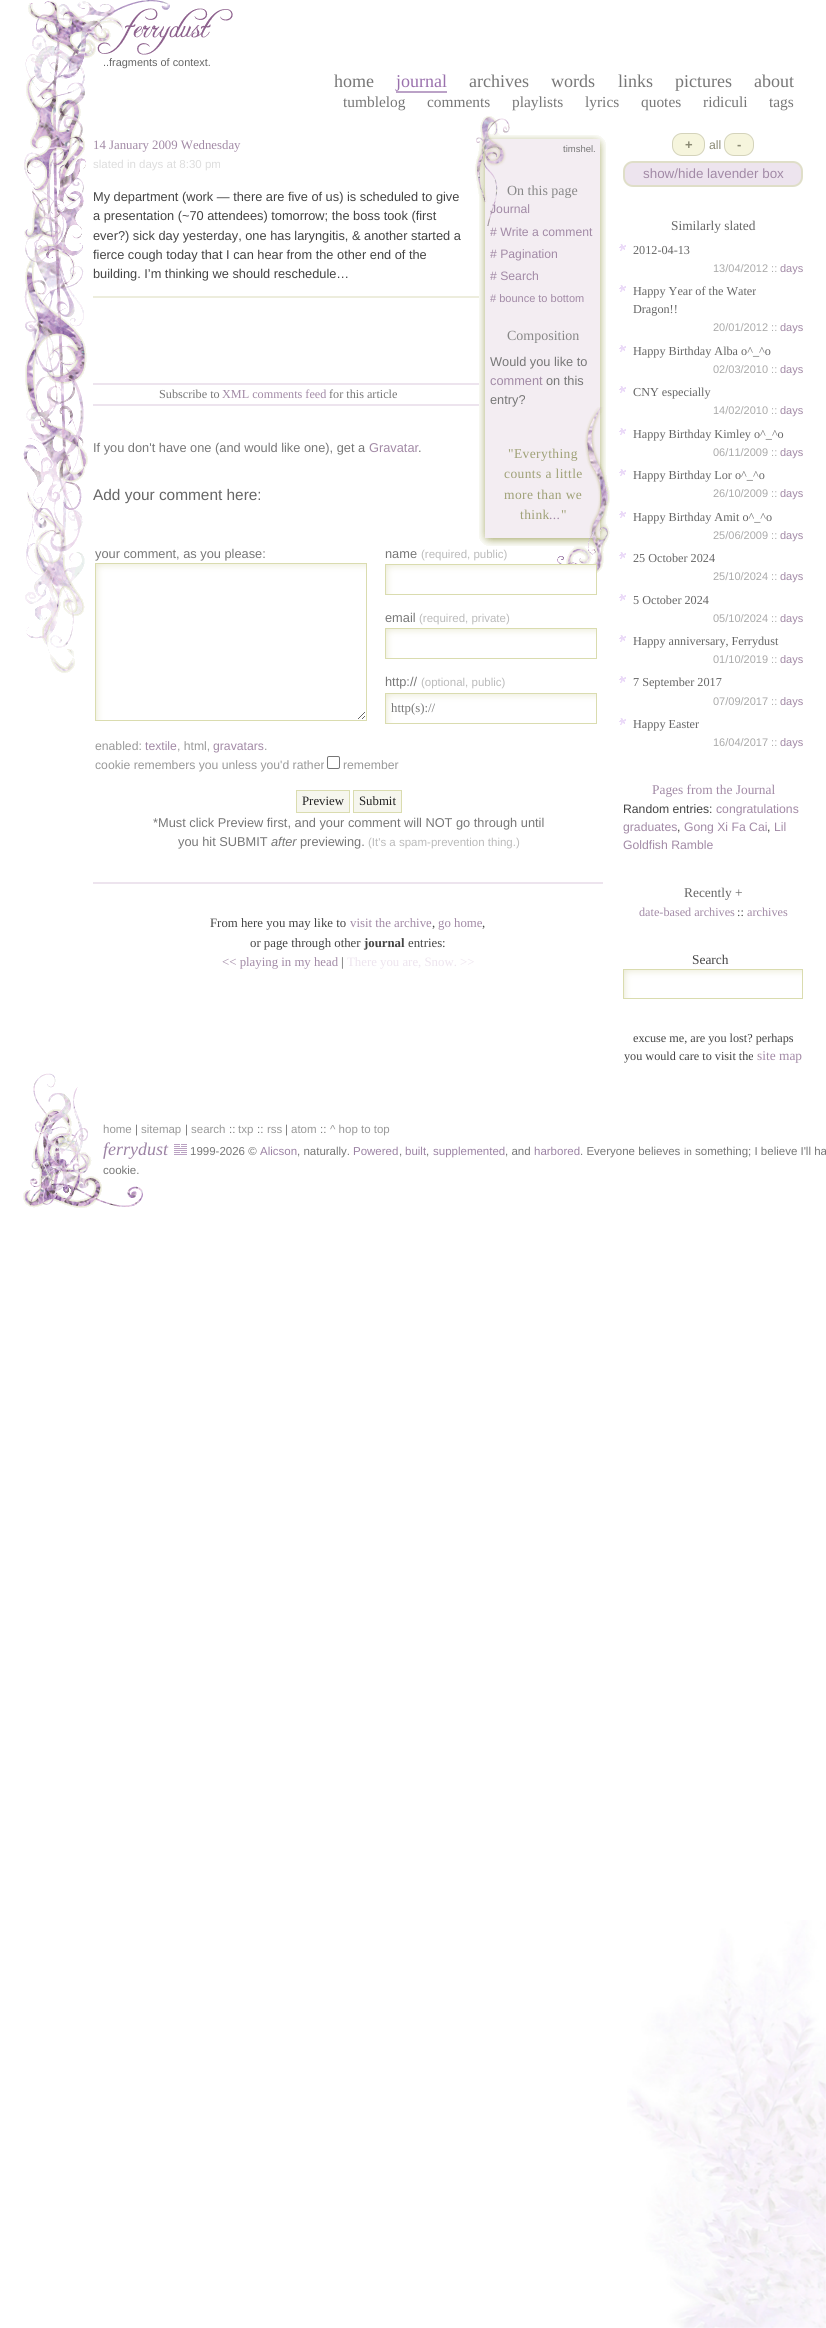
#include <cairo.h>
#include <math.h>
#include <stddef.h>

typedef struct { const char *family; double size; int italic, bold; unsigned color; } style_t;
static cairo_t *ctx;

static void ink(unsigned color) {
    cairo_set_source_rgb(ctx, (color >> 16) / 255.0, (color >> 8 & 255) / 255.0, (color & 255) / 255.0);
}

static void write(double x, double y, const char *s, const style_t *st) {
    cairo_select_font_face(ctx, st->family, st->italic ? CAIRO_FONT_SLANT_ITALIC : CAIRO_FONT_SLANT_NORMAL,
        st->bold ? CAIRO_FONT_WEIGHT_BOLD : CAIRO_FONT_WEIGHT_NORMAL);
    cairo_set_font_size(ctx, st->size);
    ink(st->color);
    cairo_move_to(ctx, x, y);
    cairo_show_text(ctx, s);
}

static void write_spaced(double x, double y, const char *s, double letter, double word) {
    cairo_move_to(ctx, x, y);
    while (*s) {
        char ch[5] = {0};
        int n = 0;
        do ch[n++] = *s++; while ((*s & 0xC0) == 0x80);
        cairo_show_text(ctx, ch);
        cairo_rel_move_to(ctx, letter + word * (*ch == ' '), 0);
    }
}

static void block(double x, double y, double w, double h, unsigned color) {
    ink(color);
    cairo_rectangle(ctx, x, y, w, h);
    cairo_fill(ctx);
}

static void round_path(double x, double y, double w, double h, double r) {
    cairo_new_sub_path(ctx);
    cairo_arc(ctx, x + w - r, y + h - r, r, 0, M_PI / 2);
    cairo_arc(ctx, x + r, y + h - r, r, M_PI / 2, M_PI);
    cairo_arc(ctx, x + r, y + r, r, M_PI, 1.5 * M_PI);
    cairo_arc(ctx, x + w - r, y + r, r, 1.5 * M_PI, 2 * M_PI);
    cairo_close_path(ctx);
}

static void paste(const char *path, double x, double y, double w, double h) {
    cairo_surface_t *image = cairo_image_surface_create_from_png(path);
    cairo_save(ctx);
    cairo_set_source_surface(ctx, image, x, y);
    cairo_rectangle(ctx, x, y, w, h);
    cairo_fill(ctx);
    cairo_restore(ctx);
    cairo_surface_destroy(image);
}

static const style_t s1 = {"Liberation Sans", 10.9, 0, 0, 0x666666};
static const style_t s2 = {"Liberation Serif", 18, 0, 0, 0x777777};
static const style_t s3 = {"Liberation Serif", 18, 0, 0, 0x9a71ad};
static const style_t s4 = {"Liberation Serif", 15.4, 0, 0, 0x777777};
static const style_t s5 = {"Liberation Serif", 12.8, 0, 0, 0xa28aa6};
static const style_t s6 = {"Liberation Sans", 11.5, 0, 0, 0xdddddd};
static const style_t s7 = {"Liberation Sans", 12.8, 0, 0, 0x444444};
static const style_t s8 = {"Liberation Serif", 12.2, 0, 0, 0x777777};
static const style_t s9 = {"Liberation Serif", 12.2, 0, 0, 0xa28aa6};
static const style_t s10 = {"Liberation Sans", 12.8, 0, 0, 0x777777};
static const style_t s11 = {"Liberation Sans", 12.8, 0, 0, 0xa28aa6};
static const style_t s12 = {"Liberation Sans", 15.4, 0, 0, 0x666666};
static const style_t s13 = {"Liberation Sans", 11.5, 0, 0, 0xbbbbbb};
static const style_t s14 = {"Liberation Serif", 12.8, 0, 0, 0x777777};
static const style_t s15 = {"Liberation Sans", 12.2, 0, 0, 0x999999};
static const style_t s16 = {"Liberation Sans", 12.2, 0, 0, 0xa28aa6};
static const style_t s17 = {"Liberation Serif", 12.8, 0, 0, 0x222222};
static const style_t s18 = {"Liberation Sans", 12.8, 1, 0, 0x777777};
static const style_t s19 = {"Liberation Serif", 12.8, 0, 0, 0x444444};
static const style_t s20 = {"Liberation Serif", 12.8, 0, 1, 0x444444};
static const style_t s21 = {"Liberation Serif", 12.8, 0, 0, 0xede4ee};
static const style_t s22 = {"Liberation Sans", 9.5, 0, 0, 0x777777};
static const style_t s23 = {"Liberation Serif", 14, 0, 0, 0x888888};
static const style_t s24 = {"Liberation Sans", 11, 0, 0, 0xa28aa6};
static const style_t s25 = {"Liberation Sans", 13, 0, 1, 0x8a8973};
static const style_t s26 = {"Liberation Sans", 12.2, 0, 0, 0x8a8973};
static const style_t s27 = {"Liberation Sans", 13.4, 0, 0, 0xa28aa6};
static const style_t s28 = {"Liberation Serif", 13.4, 0, 0, 0x666666};
static const style_t s29 = {"Liberation Serif", 12.2, 0, 0, 0x666666};
static const style_t s30 = {"Liberation Sans", 11, 0, 0, 0xaaaaaa};
static const style_t s31 = {"Liberation Serif", 13.4, 0, 0, 0xa28aa6};
static const style_t s32 = {"Liberation Sans", 12.2, 0, 0, 0x444444};
static const style_t s33 = {"Liberation Serif", 12.2, 0, 0, 0x444444};
static const style_t s34 = {"Liberation Serif", 13.4, 0, 0, 0x444444};
static const style_t s35 = {"Liberation Sans", 11.5, 0, 0, 0x999999};
static const style_t s36 = {"Liberation Sans", 11.5, 0, 0, 0x777777};
static const style_t s37 = {"Liberation Serif", 18, 1, 0, 0x9c83a4};
static const style_t s38 = {"Liberation Sans", 11.5, 0, 0, 0x9c83a4};
static const style_t s39 = {"Liberation Sans", 10, 0, 0, 0x777777};

int main(void) {
    cairo_surface_t *surface = cairo_image_surface_create(CAIRO_FORMAT_RGB24, 826, 2328);
    ctx = cairo_create(surface);
    cairo_font_options_t *options = cairo_font_options_create();
    cairo_font_options_set_hint_metrics(options, CAIRO_HINT_METRICS_OFF);
    cairo_font_options_set_hint_style(options, CAIRO_HINT_STYLE_NONE);
    cairo_set_font_options(ctx, options);
    cairo_set_miter_limit(ctx, 4);
    ink(0xffffff);
    cairo_paint(ctx);
    paste("pic1.png", 627, 1920, 199, 408);
    paste("pic2.png", 23, 0, 147, 673);
    paste("pic3.png", 23, 1073, 120, 135);
    paste("pic4.png", 97, 8, 136, 47);
    write(103, 66, "..fragments of context.", &s1);
    write(334, 87, "home", &s2);
    write(396, 87, "journal", &s3);
    block(396, 91, 51, 2, 0xbba2c7);
    write(469, 87, "archives", &s2);
    write(551, 87, "words", &s2);
    write(618, 87, "links", &s2);
    write(675, 87, "pictures", &s2);
    write(754, 87, "about", &s2);
    write(343, 107, "tumblelog", &s4);
    write(427, 107, "comments", &s4);
    write(512, 107, "playlists", &s4);
    write(585, 107, "lyrics", &s4);
    write(641, 107, "quotes", &s4);
    write(703, 107, "ridiculi", &s4);
    write(769, 107, "tags", &s4);
    block(93, 296, 386, 2, 0xededdd);
    write(93, 149, "14 January 2009 Wednesday", &s5);
    write(93, 168, "slated in days at 8:30 pm", &s6);
    write(93, 201, "My department (work — there are five of us) is scheduled to give", &s7);
    write(93, 220, "a presentation (~70 attendees) tomorrow; the boss took (first", &s7);
    write(93, 240, "ever?) sick day yesterday, one has laryngitis, & another started a", &s7);
    write(93, 259, "fierce cough today that I can hear from the other end of the", &s7);
    write(93, 278, "building. I’m thinking we should reschedule…", &s7);
    block(93, 383, 386, 2, 0xede4ee);
    block(93, 404, 386, 2, 0xede4ee);
    write(159, 398, "Subscribe to", &s8);
    write(222, 398, "XML comments feed", &s9);
    write(329, 398, "for this article", &s8);
    write(93, 452, "If you don't have one (and would like one), get a", &s10);
    write(369, 452, "Gravatar", &s11);
    write(418, 452, ".", &s10);
    write(93, 500, "Add your comment here:", &s12);
    write(95, 558, "your comment, as you please:", &s10);
    write(385, 558, "name", &s10);
    paste("pic8.png", 479, 407, 131, 166);
    write(421, 558, "(required, public)", &s13);
    paste("pic5.png", 386, 565, 210, 29);
    cairo_rectangle(ctx, 385.5, 564.5, 211, 30);
    ink(0xdadcaf);
    cairo_set_line_width(ctx, 1);
    cairo_stroke(ctx);
    write(385, 622, "email", &s10);
    write(419, 622, "(required, private)", &s13);
    paste("pic5.png", 386, 629, 210, 29);
    cairo_rectangle(ctx, 385.5, 628.5, 211, 30);
    ink(0xdadcaf);
    cairo_stroke(ctx);
    write(385, 686, "http://", &s10);
    write(421, 686, "(optional, public)", &s13);
    paste("pic5.png", 386, 694, 210, 29);
    cairo_rectangle(ctx, 385.5, 693.5, 211, 30);
    ink(0xdadcaf);
    cairo_stroke(ctx);
    write(391, 712, "http(s)://", &s14);
    paste("pic6.png", 96, 564, 270, 156);
    cairo_rectangle(ctx, 95.5, 563.5, 271, 157);
    ink(0xdadcaf);
    cairo_stroke(ctx);
    write(95, 750, "enabled:", &s15);
    write(145, 750, "textile", &s16);
    write(177, 750, ", html,", &s15);
    write(213, 750, "gravatars", &s16);
    write(264, 750, ".", &s15);
    write(95, 769, "cookie remembers you unless you'd rather", &s15);
    round_path(327.5, 756.5, 12, 12, 1.5);
    ink(0x767676);
    cairo_stroke(ctx);
    write(343, 769, "remember", &s15);
    ink(0xf6f6ee);
    cairo_rectangle(ctx, 296.5, 790.5, 53, 22);
    cairo_fill_preserve(ctx);
    ink(0xdadcaf);
    cairo_stroke(ctx);
    write(302, 805, "Preview", &s17);
    ink(0xf6f6ee);
    cairo_rectangle(ctx, 353.5, 790.5, 48, 22);
    cairo_fill_preserve(ctx);
    ink(0xdadcaf);
    cairo_stroke(ctx);
    write(359, 805, "Submit", &s17);
    write(153, 827, "*Must click Preview first, and your comment will NOT go through until", &s10);
    write(178, 846, "you hit SUBMIT", &s10);
    write(271, 846, "after", &s18);
    write(300, 846, "previewing.", &s10);
    write(368, 846, "(It's a spam-prevention thing.)", &s13);
    block(93, 882, 510, 2, 0xede4ee);
    write(210, 927, "From here you may like to", &s19);
    write(350, 927, "visit the archive", &s5);
    write(432, 927, ",", &s19);
    write(438, 927, "go home", &s5);
    write(482, 927, ",", &s19);
    write(250, 947, "or page through other", &s19);
    write(364, 947, "journal", &s20);
    write(408, 947, "entries:", &s19);
    write(222, 966, "<< playing in my head", &s5);
    write(341, 966, "|", &s19);
    write(347, 966, "There you are, Snow. >>", &s21);
    paste("pic7.png", 479, 226, 127, 181);
    paste("pic9.png", 475, 116, 131, 110);
    write(563, 152, "timshel.", &s22);
    write(507, 195, "On this page", &s23);
    write(490, 213, "Journal", &s16);
    write(490, 236, "# Write a comment", &s16);
    write(490, 258, "# Pagination", &s16);
    write(490, 280, "# Search", &s16);
    write(490, 302, "# bounce to bottom", &s24);
    write(507, 340, "Composition", &s23);
    write(490, 366, "Would you like to", &s10);
    write(490, 385, "comment", &s11);
    write(546, 385, "on this", &s10);
    write(490, 404, "entry?", &s10);
    cairo_select_font_face(ctx, "Liberation Serif", CAIRO_FONT_SLANT_NORMAL, CAIRO_FONT_WEIGHT_NORMAL);
    cairo_set_font_size(ctx, 13.5);
    ink(0x9fa177);
    write_spaced(508, 458, "\"Everything", 0.4, 0);
    write_spaced(504, 478, "counts a little", 0.4, 0);
    write_spaced(504, 499, "more than we", 0.4, 0);
    write_spaced(520, 519, "think", 0.4, 0);
    write_spaced(561, 519, "\"", 0.4, 0);
    ink(0xa28aa6);
    write_spaced(549, 519, "...", 0.4, 0);
    ink(0xf6f5dd);
    round_path(672.5, 133.5, 32, 22, 9.5);
    cairo_fill_preserve(ctx);
    ink(0xd4d3bb);
    cairo_stroke(ctx);
    write(685, 149, "+", &s25);
    write(709, 149, "all", &s26);
    ink(0xf6f5dd);
    round_path(724.5, 133.5, 29, 22, 9.5);
    cairo_fill_preserve(ctx);
    ink(0xd4d3bb);
    cairo_stroke(ctx);
    write(737, 149, "-", &s25);
    ink(0xede4ee);
    round_path(624, 162, 178, 24, 9);
    cairo_fill_preserve(ctx);
    ink(0xdfdec8);
    cairo_set_line_width(ctx, 2);
    cairo_stroke(ctx);
    write(643, 178, "show/hide lavender box", &s27);
    write(671, 230, "Similarly slated", &s28);
    paste("pic10.png", 619, 244, 7, 7);
    write(633, 254, "2012-04-13", &s29);
    write(713, 272, "13/04/2012 ::", &s30);
    write(780, 272, "days", &s24);
    paste("pic10.png", 619, 285, 7, 7);
    write(633, 295, "Happy Year of the Water", &s29);
    write(633, 313, "Dragon!!", &s29);
    write(713, 331, "20/01/2012 ::", &s30);
    write(780, 331, "days", &s24);
    paste("pic10.png", 619, 345, 7, 7);
    write(633, 355, "Happy Birthday Alba o^_^o", &s29);
    write(713, 373, "02/03/2010 ::", &s30);
    write(780, 373, "days", &s24);
    paste("pic10.png", 619, 386, 7, 7);
    write(633, 396, "CNY especially", &s29);
    write(713, 414, "14/02/2010 ::", &s30);
    write(780, 414, "days", &s24);
    paste("pic10.png", 619, 428, 7, 7);
    write(633, 438, "Happy Birthday Kimley o^_^o", &s29);
    write(713, 456, "06/11/2009 ::", &s30);
    write(780, 456, "days", &s24);
    paste("pic10.png", 619, 469, 7, 7);
    write(633, 479, "Happy Birthday Lor o^_^o", &s29);
    write(713, 497, "26/10/2009 ::", &s30);
    write(780, 497, "days", &s24);
    paste("pic10.png", 619, 511, 7, 7);
    write(633, 521, "Happy Birthday Amit o^_^o", &s29);
    write(713, 539, "25/06/2009 ::", &s30);
    write(780, 539, "days", &s24);
    paste("pic10.png", 619, 552, 7, 7);
    write(633, 562, "25 October 2024", &s29);
    write(713, 580, "25/10/2024 ::", &s30);
    write(780, 580, "days", &s24);
    paste("pic10.png", 619, 594, 7, 7);
    write(633, 604, "5 October 2024", &s29);
    write(713, 622, "05/10/2024 ::", &s30);
    write(780, 622, "days", &s24);
    paste("pic10.png", 619, 635, 7, 7);
    write(633, 645, "Happy anniversary, Ferrydust", &s29);
    write(713, 663, "01/10/2019 ::", &s30);
    write(780, 663, "days", &s24);
    paste("pic10.png", 619, 676, 7, 7);
    write(633, 686, "7 September 2017", &s29);
    write(713, 705, "07/09/2017 ::", &s30);
    write(780, 705, "days", &s24);
    paste("pic10.png", 619, 718, 7, 7);
    write(633, 728, "Happy Easter", &s29);
    write(713, 746, "16/04/2017 ::", &s30);
    write(780, 746, "days", &s24);
    write(652, 794, "Pages from the Journal", &s31);
    write(623, 813, "Random entries:", &s32);
    write(716, 813, "congratulations", &s16);
    write(623, 831, "graduates", &s16);
    write(677, 831, ",", &s32);
    write(684, 831, "Gong Xi Fa Cai", &s16);
    write(767, 831, ",", &s32);
    write(774, 831, "Lil", &s16);
    write(623, 849, "Goldfish Ramble", &s16);
    write(684, 897, "Recently +", &s28);
    write(639, 916, "date-based archives", &s9);
    write(737, 916, "::", &s33);
    write(747, 916, "archives", &s9);
    write(692, 964, "Search", &s34);
    paste("pic11.png", 624, 970, 178, 28);
    cairo_rectangle(ctx, 623.5, 969.5, 179, 29);
    ink(0xdadcaf);
    cairo_set_line_width(ctx, 1);
    cairo_stroke(ctx);
    write(633, 1042, "excuse me, are you lost? perhaps", &s33);
    write(624, 1060, "you would care to visit the", &s33);
    write(757, 1060, "site map", &s31);
    write(103, 1133, "home", &s35);
    write(135, 1133, "|", &s36);
    write(141, 1133, "sitemap", &s35);
    write(185, 1133, "|", &s36);
    write(191, 1133, "search", &s35);
    write(229, 1133, "::", &s36);
    write(238, 1133, "txp", &s35);
    write(257, 1133, "::", &s36);
    write(267, 1133, "rss", &s35);
    write(285, 1133, "|", &s36);
    write(291, 1133, "atom", &s35);
    write(320, 1133, "::", &s36);
    write(330, 1133, "^ hop to top", &s35);
    write(103, 1155, "ferrydust", &s37);
    paste("pic12.png", 174, 1144, 13, 11);
    write(190, 1155, "1999-2026 ©", &s36);
    write(260, 1155, "Alicson", &s38);
    write(297, 1155, ", naturally.", &s36);
    write(353, 1155, "Powered", &s38);
    write(399, 1155, ",", &s36);
    write(405, 1155, "built", &s38);
    write(426, 1155, ",", &s36);
    write(433, 1155, "supplemented", &s38);
    write(505, 1155, ", and", &s36);
    write(534, 1155, "harbored", &s38);
    write(580, 1155, ". Everyone believes", &s36);
    write(684, 1155, "in", &s39);
    write(695, 1155, "something; I believe I'll ha", &s36);
    write(103, 1174, "cookie.", &s36);
    cairo_surface_write_to_png(surface, "screenshot.png");
    cairo_font_options_destroy(options);
    cairo_destroy(ctx);
    cairo_surface_destroy(surface);
    return 0;
}
